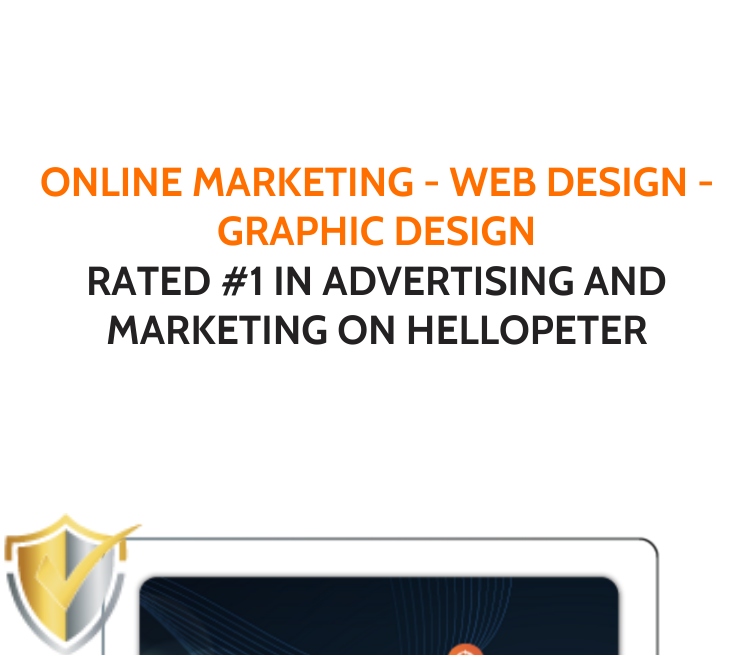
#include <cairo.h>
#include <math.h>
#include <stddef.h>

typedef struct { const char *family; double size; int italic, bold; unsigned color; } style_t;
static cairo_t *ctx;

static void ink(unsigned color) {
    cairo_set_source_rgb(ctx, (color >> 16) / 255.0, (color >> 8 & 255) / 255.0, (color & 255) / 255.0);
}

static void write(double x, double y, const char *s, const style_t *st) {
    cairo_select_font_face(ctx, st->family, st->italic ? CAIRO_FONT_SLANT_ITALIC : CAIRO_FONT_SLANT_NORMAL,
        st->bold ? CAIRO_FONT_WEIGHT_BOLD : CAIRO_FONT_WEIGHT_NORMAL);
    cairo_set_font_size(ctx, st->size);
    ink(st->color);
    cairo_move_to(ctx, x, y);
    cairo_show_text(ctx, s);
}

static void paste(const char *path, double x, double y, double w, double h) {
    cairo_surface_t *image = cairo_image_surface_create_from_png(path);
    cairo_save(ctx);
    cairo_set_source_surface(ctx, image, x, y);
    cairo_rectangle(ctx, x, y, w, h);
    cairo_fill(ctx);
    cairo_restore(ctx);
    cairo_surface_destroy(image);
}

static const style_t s1 = {"Cabin", 40.5, 0, 1, 0xff6f00};
static const style_t s2 = {"Cabin", 40.5, 0, 1, 0x232122};

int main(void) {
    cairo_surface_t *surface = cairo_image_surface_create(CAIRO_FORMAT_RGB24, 753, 655);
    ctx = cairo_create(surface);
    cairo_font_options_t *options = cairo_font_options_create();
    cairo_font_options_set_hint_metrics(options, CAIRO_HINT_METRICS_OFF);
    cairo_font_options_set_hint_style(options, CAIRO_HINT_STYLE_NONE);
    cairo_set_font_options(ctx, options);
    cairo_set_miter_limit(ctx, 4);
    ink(0xffffff);
    cairo_paint(ctx);
    write(40, 196, "ONLINE MARKETING - WEB DESIGN -", &s1);
    write(217, 245, "GRAPHIC DESIGN", &s1);
    write(86, 295, "RATED #1 IN ADVERTISING AND", &s2);
    write(106, 344, "MARKETING ON HELLOPETER", &s2);
    paste("pic1.png", 100, 536, 560, 119);
    paste("pic2.png", 4, 513, 139, 142);
    cairo_surface_write_to_png(surface, "screenshot.png");
    cairo_font_options_destroy(options);
    cairo_destroy(ctx);
    cairo_surface_destroy(surface);
    return 0;
}
